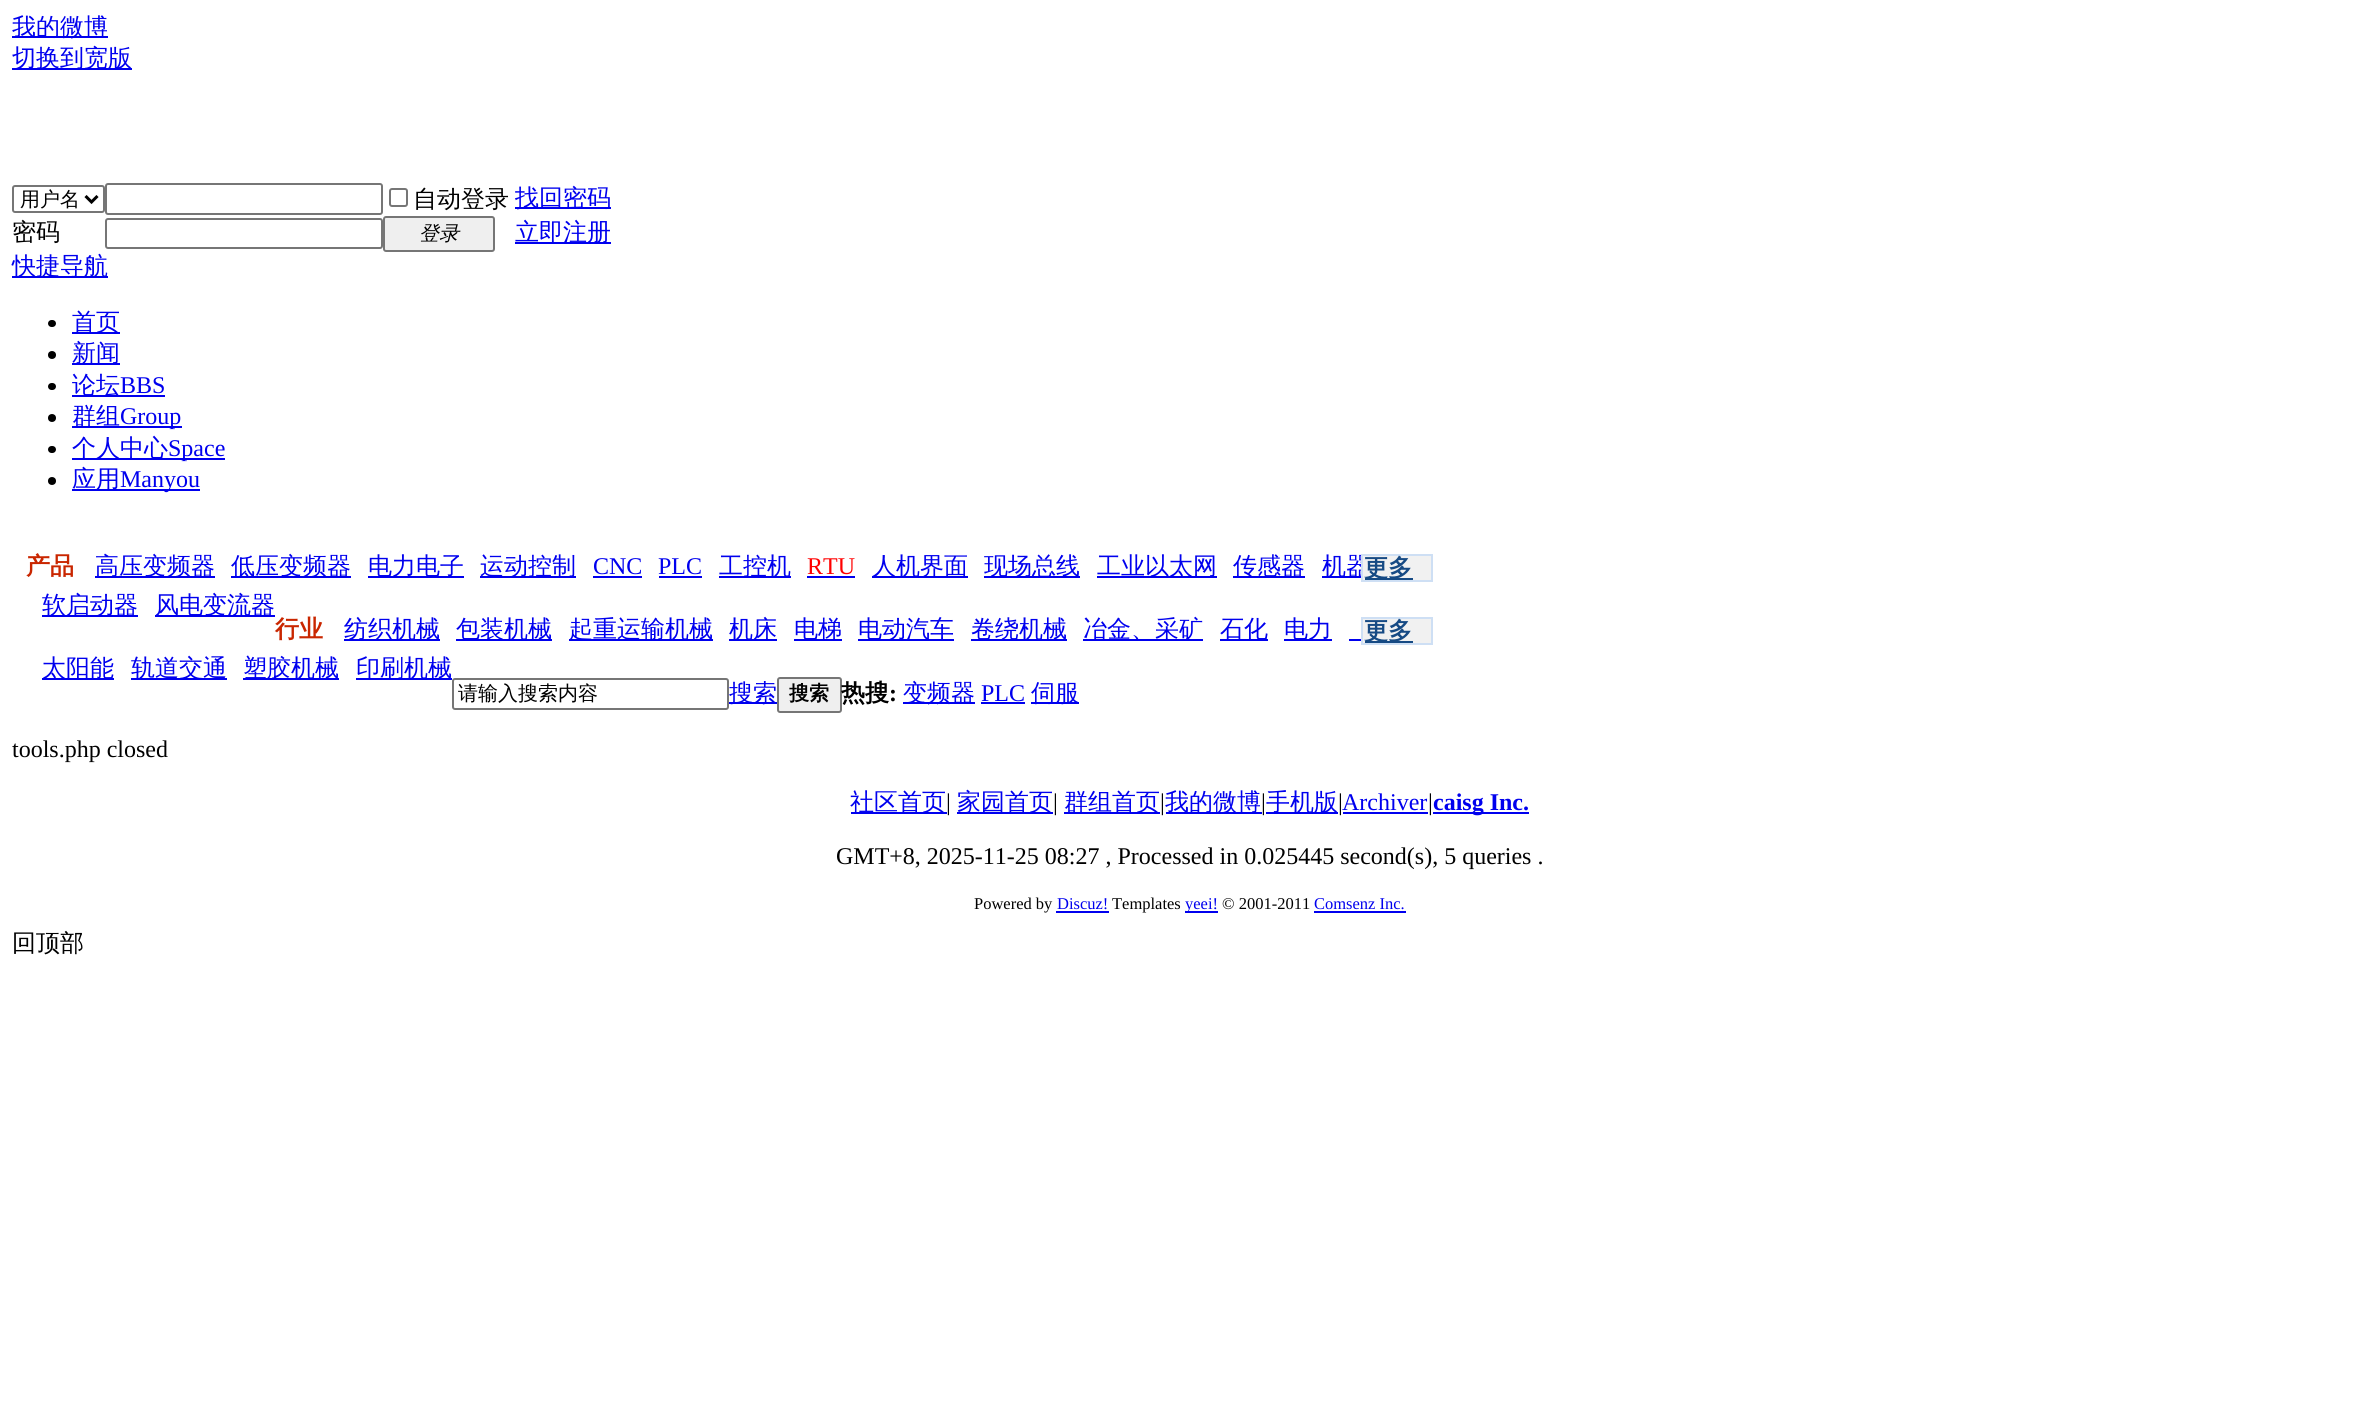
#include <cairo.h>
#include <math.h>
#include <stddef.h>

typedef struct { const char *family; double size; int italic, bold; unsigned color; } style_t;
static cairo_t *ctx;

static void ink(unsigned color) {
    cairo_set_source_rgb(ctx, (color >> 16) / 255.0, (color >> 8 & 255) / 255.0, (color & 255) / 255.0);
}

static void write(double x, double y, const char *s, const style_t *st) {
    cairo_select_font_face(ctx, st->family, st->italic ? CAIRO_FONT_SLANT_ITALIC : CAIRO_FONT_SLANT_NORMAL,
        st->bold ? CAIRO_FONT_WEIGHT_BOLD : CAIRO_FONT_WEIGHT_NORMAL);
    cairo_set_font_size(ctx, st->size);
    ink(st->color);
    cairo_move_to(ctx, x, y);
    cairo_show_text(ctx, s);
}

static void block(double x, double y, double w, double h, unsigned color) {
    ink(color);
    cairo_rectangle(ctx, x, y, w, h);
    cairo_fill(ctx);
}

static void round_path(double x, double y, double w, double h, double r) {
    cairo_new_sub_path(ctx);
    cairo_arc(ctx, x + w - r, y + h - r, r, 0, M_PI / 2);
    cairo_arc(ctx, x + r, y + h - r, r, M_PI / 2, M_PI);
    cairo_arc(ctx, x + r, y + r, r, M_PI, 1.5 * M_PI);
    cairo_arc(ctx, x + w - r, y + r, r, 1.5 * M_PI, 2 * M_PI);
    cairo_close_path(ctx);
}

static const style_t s1 = {"WenQuanYi Zen Hei Medium", 24, 0, 0, 0x0000ee};
static const style_t s2 = {"WenQuanYi Zen Hei Medium", 20, 0, 0, 0x000000};
static const style_t s3 = {"WenQuanYi Zen Hei Medium", 24, 0, 0, 0x000000};
static const style_t s4 = {"WenQuanYi Zen Hei Medium", 20, 1, 0, 0x000000};
static const style_t s5 = {"Liberation Serif", 24, 0, 0, 0x0000ee};
static const style_t s6 = {"WenQuanYi Zen Hei", 24, 0, 1, 0xc92600};
static const style_t s7 = {"Liberation Serif", 24, 0, 0, 0xff0000};
static const style_t s8 = {"WenQuanYi Zen Hei", 24, 0, 1, 0x164a84};
static const style_t s9 = {"WenQuanYi Zen Hei", 20, 0, 1, 0x000000};
static const style_t s10 = {"WenQuanYi Zen Hei", 24, 0, 1, 0x000000};
static const style_t s11 = {"Liberation Serif", 24, 0, 1, 0x000000};
static const style_t s12 = {"Liberation Serif", 24, 0, 0, 0x000000};
static const style_t s13 = {"Liberation Serif", 24, 0, 1, 0x0000ee};
static const style_t s14 = {"Liberation Serif", 16.5, 0, 0, 0x000000};
static const style_t s15 = {"Liberation Serif", 16.5, 0, 0, 0x0000ee};

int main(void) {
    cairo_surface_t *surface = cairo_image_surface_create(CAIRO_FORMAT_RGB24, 2378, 1417);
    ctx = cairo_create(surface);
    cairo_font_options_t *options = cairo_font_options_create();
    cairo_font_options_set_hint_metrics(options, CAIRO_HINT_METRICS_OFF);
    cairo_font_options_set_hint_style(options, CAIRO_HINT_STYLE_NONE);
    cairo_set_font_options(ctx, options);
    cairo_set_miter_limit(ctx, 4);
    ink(0xffffff);
    cairo_paint(ctx);
    block(12, 36, 96, 2, 0x0000ee);
    write(12, 35, "我的微博", &s1);
    block(12, 68, 120, 2, 0x0000ee);
    write(12, 66, "切换到宽版", &s1);
    round_path(13, 186, 91, 26, 2);
    ink(0x767676);
    cairo_stroke(ctx);
    cairo_new_path(ctx);
    cairo_move_to(ctx, 85.5, 196);
    cairo_line_to(ctx, 91.5, 202);
    cairo_line_to(ctx, 97.5, 196);
    ink(0x000000);
    cairo_set_line_width(ctx, 3);
    cairo_stroke(ctx);
    write(20, 206, "用户名", &s2);
    round_path(106, 184, 276, 30, 2);
    ink(0x767676);
    cairo_set_line_width(ctx, 2);
    cairo_stroke(ctx);
    round_path(390, 189, 17, 17, 2);
    cairo_stroke(ctx);
    write(413, 207, "自动登录", &s3);
    block(515, 207, 96, 2, 0x0000ee);
    write(515, 206, "找回密码", &s1);
    write(12, 240, "密码", &s3);
    round_path(106, 219, 276, 29, 2);
    ink(0x767676);
    cairo_stroke(ctx);
    ink(0xefefef);
    round_path(384, 217, 110, 34, 2);
    cairo_fill_preserve(ctx);
    ink(0x767676);
    cairo_stroke(ctx);
    write(419, 240, "登录", &s4);
    block(515, 242, 96, 2, 0x0000ee);
    write(515, 240, "立即注册", &s1);
    block(12, 276, 96, 2, 0x0000ee);
    write(12, 274, "快捷导航", &s1);
    ink(0x000000);
    round_path(48, 320, 8, 7, 3.5);
    cairo_fill(ctx);
    block(72, 332, 48, 2, 0x0000ee);
    write(72, 330, "首页", &s1);
    ink(0x000000);
    cairo_new_path(ctx);
    cairo_arc(ctx, 52, 355, 4, 0, 2 * M_PI);
    cairo_fill(ctx);
    block(72, 363, 48, 2, 0x0000ee);
    write(72, 361, "新闻", &s1);
    ink(0x000000);
    round_path(48, 383, 8, 7, 3.5);
    cairo_fill(ctx);
    block(72, 395, 93, 2, 0x0000ee);
    write(72, 393, "论坛", &s1);
    write(120, 393, "BBS", &s5);
    ink(0x000000);
    cairo_new_path(ctx);
    cairo_arc(ctx, 52, 418, 4, 0, 2 * M_PI);
    cairo_fill(ctx);
    block(72, 426, 110, 2, 0x0000ee);
    write(72, 424, "群组", &s1);
    write(120, 424, "Group", &s5);
    ink(0x000000);
    round_path(48, 446, 8, 7, 3.5);
    cairo_fill(ctx);
    block(72, 458, 153, 2, 0x0000ee);
    write(72, 456, "个人中心", &s1);
    write(168, 456, "Space", &s5);
    ink(0x000000);
    cairo_new_path(ctx);
    cairo_arc(ctx, 52, 481, 4, 0, 2 * M_PI);
    cairo_fill(ctx);
    block(72, 489, 128, 2, 0x0000ee);
    write(72, 487, "应用", &s1);
    write(120, 487, "Manyou", &s5);
    write(26, 574, "产品", &s6);
    block(95, 576, 120, 2, 0x0000ee);
    write(95, 574, "高压变频器", &s1);
    block(231, 576, 120, 2, 0x0000ee);
    write(231, 574, "低压变频器", &s1);
    block(368, 576, 96, 2, 0x0000ee);
    write(368, 574, "电力电子", &s1);
    block(480, 576, 96, 2, 0x0000ee);
    write(480, 574, "运动控制", &s1);
    write(593, 574, "CNC", &s5);
    block(593, 576, 49, 2, 0x0000ee);
    write(658, 574, "PLC", &s5);
    block(659, 576, 43, 2, 0x0000ee);
    block(719, 576, 72, 2, 0x0000ee);
    write(719, 574, "工控机", &s1);
    write(807, 574, "RTU", &s7);
    block(807, 576, 48, 2, 0x0000ee);
    block(872, 576, 96, 2, 0x0000ee);
    write(872, 574, "人机界面", &s1);
    block(984, 576, 96, 2, 0x0000ee);
    write(984, 574, "现场总线", &s1);
    block(1097, 576, 120, 2, 0x0000ee);
    write(1097, 574, "工业以太网", &s1);
    block(1233, 576, 72, 2, 0x0000ee);
    write(1233, 574, "传感器", &s1);
    block(1322, 576, 39, 2, 0x0000ee);
    write(1322, 574, "机器", &s1);
    ink(0xf1f1f1);
    cairo_rectangle(ctx, 1362, 555, 70, 26);
    cairo_fill_preserve(ctx);
    ink(0xcedff4);
    cairo_stroke(ctx);
    block(1365, 578, 48, 2, 0x164a84);
    write(1364, 576, "更多", &s8);
    block(42, 615, 96, 2, 0x0000ee);
    write(42, 613, "软启动器", &s1);
    block(155, 615, 120, 2, 0x0000ee);
    write(155, 613, "风电变流器", &s1);
    write(275, 637, "行业", &s6);
    block(344, 639, 96, 2, 0x0000ee);
    write(344, 637, "纺织机械", &s1);
    block(456, 639, 96, 2, 0x0000ee);
    write(456, 637, "包装机械", &s1);
    block(569, 639, 144, 2, 0x0000ee);
    write(569, 637, "起重运输机械", &s1);
    block(729, 639, 48, 2, 0x0000ee);
    write(729, 637, "机床", &s1);
    block(794, 639, 48, 2, 0x0000ee);
    write(794, 637, "电梯", &s1);
    block(858, 639, 96, 2, 0x0000ee);
    write(858, 637, "电动汽车", &s1);
    block(971, 639, 96, 2, 0x0000ee);
    write(971, 637, "卷绕机械", &s1);
    block(1083, 639, 120, 2, 0x0000ee);
    write(1083, 637, "冶金、采矿", &s1);
    block(1220, 639, 48, 2, 0x0000ee);
    write(1220, 637, "石化", &s1);
    block(1284, 639, 48, 2, 0x0000ee);
    write(1284, 637, "电力", &s1);
    block(1349, 639, 12, 2, 0x0000ee);
    ink(0xf1f1f1);
    cairo_rectangle(ctx, 1362, 618, 70, 26);
    cairo_fill_preserve(ctx);
    ink(0xcedff4);
    cairo_stroke(ctx);
    block(1365, 641, 48, 2, 0x164a84);
    write(1364, 639, "更多", &s8);
    block(42, 678, 72, 2, 0x0000ee);
    write(42, 676, "太阳能", &s1);
    block(131, 678, 96, 2, 0x0000ee);
    write(131, 676, "轨道交通", &s1);
    block(243, 678, 96, 2, 0x0000ee);
    write(243, 676, "塑胶机械", &s1);
    block(356, 678, 96, 2, 0x0000ee);
    write(356, 676, "印刷机械", &s1);
    round_path(453, 679, 275, 30, 2);
    ink(0x767676);
    cairo_stroke(ctx);
    write(458, 700, "请输入搜索内容", &s2);
    block(729, 702, 48, 2, 0x0000ee);
    write(729, 701, "搜索", &s1);
    ink(0xefefef);
    round_path(778, 678, 63, 34, 2);
    cairo_fill_preserve(ctx);
    ink(0x767676);
    cairo_stroke(ctx);
    write(789, 700, "搜索", &s9);
    write(841, 701, "热搜", &s10);
    write(889, 701, ":", &s11);
    block(903, 702, 72, 2, 0x0000ee);
    write(903, 701, "变频器", &s1);
    write(981, 701, "PLC", &s5);
    block(981, 702, 44, 2, 0x0000ee);
    block(1031, 702, 48, 2, 0x0000ee);
    write(1031, 701, "伺服", &s1);
    write(12, 757, "tools.php closed", &s12);
    block(851, 812, 96, 2, 0x0000ee);
    write(850, 810, "社区首页", &s1);
    write(946, 810, "|", &s12);
    block(957, 812, 96, 2, 0x0000ee);
    write(957, 810, "家园首页", &s1);
    write(1053, 810, "|", &s12);
    block(1064, 812, 96, 2, 0x0000ee);
    write(1064, 810, "群组首页", &s1);
    write(1160, 810, "|", &s12);
    block(1166, 812, 96, 2, 0x0000ee);
    write(1165, 810, "我的微博", &s1);
    write(1261, 810, "|", &s12);
    block(1266, 812, 72, 2, 0x0000ee);
    write(1266, 810, "手机版", &s1);
    write(1338, 810, "|", &s12);
    write(1342, 810, "Archiver", &s5);
    block(1343, 812, 85, 2, 0x0000ee);
    write(1428, 810, "|", &s12);
    block(1433, 812, 96, 2, 0x0000ee);
    write(1433, 810, "caisg Inc.", &s13);
    write(836, 864, "GMT+8, 2025-11-25 08:27 , Processed in 0.025445 second(s), 5 queries .", &s12);
    write(974, 909, "Powered by", &s14);
    write(1057, 909, "Discuz!", &s15);
    block(1056, 911, 53, 2, 0x0000ee);
    write(1112, 909, "Templates", &s14);
    block(1185, 911, 33, 2, 0x0000ee);
    write(1185, 909, "yeei!", &s15);
    write(1222, 909, "© 2001-2011", &s14);
    write(1314, 909, "Comsenz Inc.", &s15);
    block(1314, 911, 92, 2, 0x0000ee);
    write(12, 951, "回顶部", &s3);
    cairo_surface_write_to_png(surface, "screenshot.png");
    cairo_font_options_destroy(options);
    cairo_destroy(ctx);
    cairo_surface_destroy(surface);
    return 0;
}
